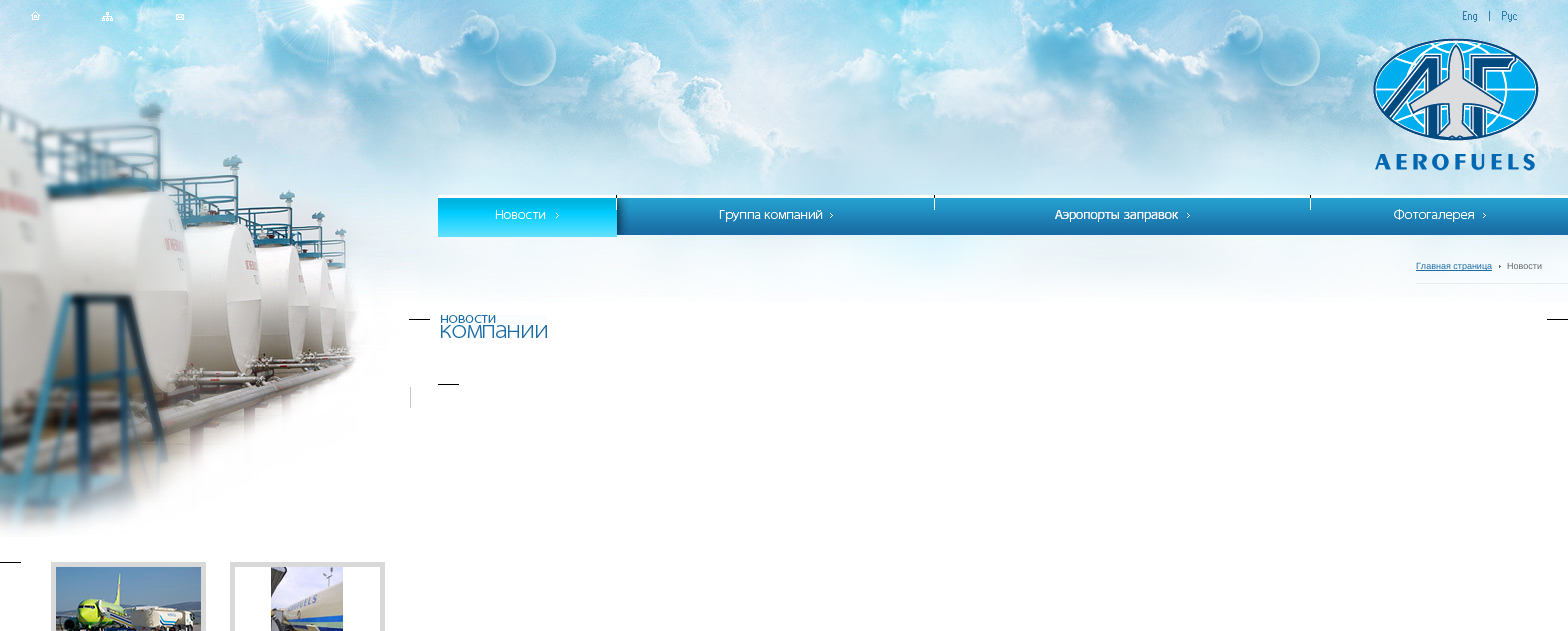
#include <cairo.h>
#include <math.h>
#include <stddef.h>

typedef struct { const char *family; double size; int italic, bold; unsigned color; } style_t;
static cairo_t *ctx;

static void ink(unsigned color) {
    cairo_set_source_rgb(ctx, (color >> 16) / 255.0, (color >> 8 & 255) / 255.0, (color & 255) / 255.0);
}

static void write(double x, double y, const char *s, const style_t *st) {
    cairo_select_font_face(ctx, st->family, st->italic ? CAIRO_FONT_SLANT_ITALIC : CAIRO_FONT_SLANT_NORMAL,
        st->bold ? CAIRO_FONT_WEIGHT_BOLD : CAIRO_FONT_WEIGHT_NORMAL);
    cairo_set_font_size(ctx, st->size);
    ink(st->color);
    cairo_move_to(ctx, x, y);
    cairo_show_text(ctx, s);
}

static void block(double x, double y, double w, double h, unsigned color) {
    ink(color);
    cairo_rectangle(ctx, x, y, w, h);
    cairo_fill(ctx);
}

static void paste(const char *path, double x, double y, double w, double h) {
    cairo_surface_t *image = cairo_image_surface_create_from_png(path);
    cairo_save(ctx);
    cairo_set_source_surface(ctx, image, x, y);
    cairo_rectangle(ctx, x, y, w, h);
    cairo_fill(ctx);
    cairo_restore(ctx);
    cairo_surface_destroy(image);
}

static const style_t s1 = {"Liberation Sans", 9, 0, 0, 0x196ca4};
static const style_t s2 = {"Liberation Sans", 9, 0, 0, 0x666666};

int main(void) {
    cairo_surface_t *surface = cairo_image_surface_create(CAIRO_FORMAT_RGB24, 1568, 631);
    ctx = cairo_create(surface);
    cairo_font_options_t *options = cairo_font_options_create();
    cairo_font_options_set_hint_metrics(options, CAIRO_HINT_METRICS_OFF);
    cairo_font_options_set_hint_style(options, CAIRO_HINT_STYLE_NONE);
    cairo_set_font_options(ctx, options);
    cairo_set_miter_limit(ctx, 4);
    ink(0xffffff);
    cairo_paint(ctx);
    paste("pic1.png", 420, 0, 1148, 302);
    paste("pic2.png", 0, 0, 420, 537);
    paste("pic3.png", 31, 11, 9, 9);
    paste("pic4.png", 102, 12, 11, 9);
    paste("pic5.png", 176, 14, 8, 6);
    paste("pic6.png", 1463, 11, 14, 11);
    block(1489, 11, 1, 10, 0x307bae);
    paste("pic7.png", 1502, 11, 15, 11);
    paste("pic8.png", 1373, 38, 166, 133);
    paste("pic9.png", 438, 195, 1130, 40);
    paste("pic10.png", 438, 198, 179, 39);
    paste("pic11.png", 616, 195, 1, 15);
    paste("pic12.png", 495, 210, 64, 9);
    paste("pic11.png", 934, 195, 1, 15);
    paste("pic13.png", 617, 198, 12, 37);
    paste("pic14.png", 719, 210, 114, 12);
    paste("pic11.png", 1310, 195, 1, 15);
    paste("pic15.png", 1055, 210, 135, 12);
    paste("pic16.png", 1394, 209, 92, 13);
    block(1416, 283, 152, 1, 0xe6edef);
    block(1416, 270, 76, 1, 0x196ca4);
    write(1416, 269, "Главная страница", &s1);
    paste("pic17.png", 1499, 265, 2, 3);
    write(1507, 269, "Новости", &s2);
    block(409, 319, 21, 1, 0x000000);
    block(1547, 319, 21, 1, 0x000000);
    paste("pic18.png", 440, 315, 107, 23);
    block(410, 387, 1, 21, 0xc3c3c3);
    block(438, 384, 21, 1, 0x000000);
    block(0, 562, 21, 1, 0x000000);
    cairo_rectangle(ctx, 53.5, 564.5, 150, 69);
    ink(0xd9d9d9);
    cairo_set_line_width(ctx, 5);
    cairo_stroke(ctx);
    paste("pic19.png", 56, 567, 145, 64);
    cairo_rectangle(ctx, 232.5, 564.5, 150, 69);
    cairo_stroke(ctx);
    paste("pic20.png", 235, 567, 145, 64);
    cairo_surface_write_to_png(surface, "screenshot.png");
    cairo_font_options_destroy(options);
    cairo_destroy(ctx);
    cairo_surface_destroy(surface);
    return 0;
}
